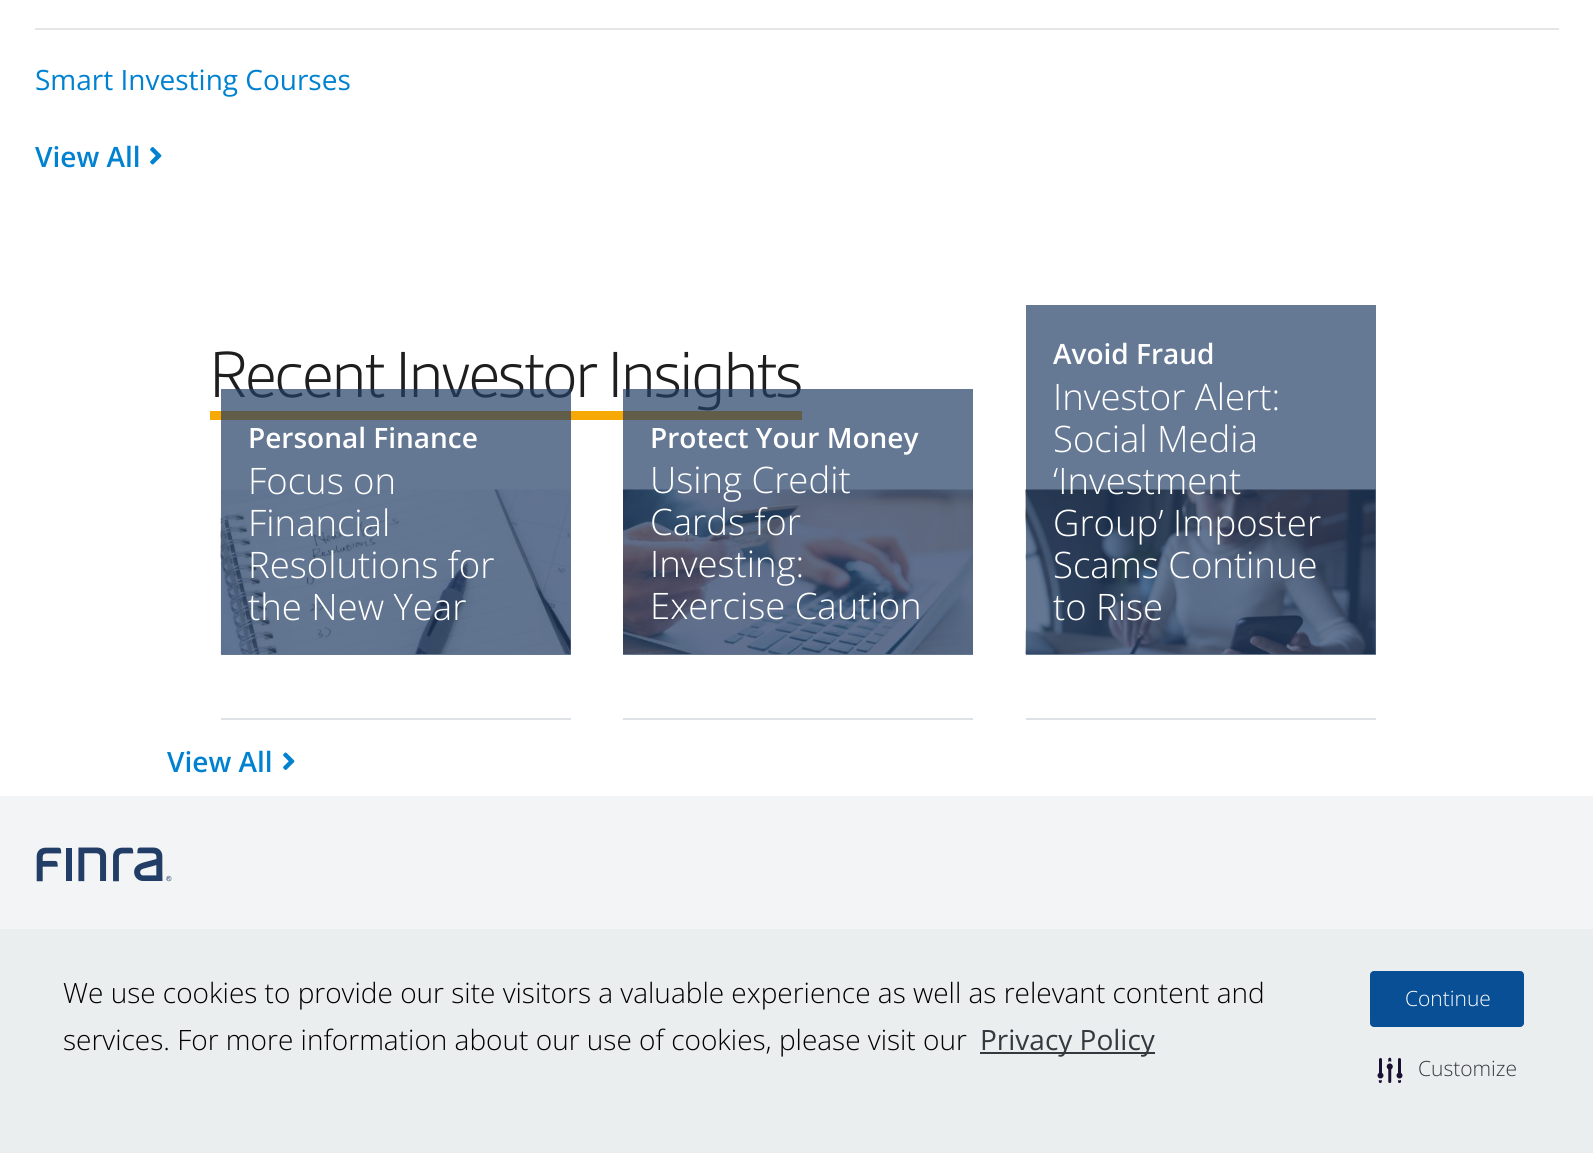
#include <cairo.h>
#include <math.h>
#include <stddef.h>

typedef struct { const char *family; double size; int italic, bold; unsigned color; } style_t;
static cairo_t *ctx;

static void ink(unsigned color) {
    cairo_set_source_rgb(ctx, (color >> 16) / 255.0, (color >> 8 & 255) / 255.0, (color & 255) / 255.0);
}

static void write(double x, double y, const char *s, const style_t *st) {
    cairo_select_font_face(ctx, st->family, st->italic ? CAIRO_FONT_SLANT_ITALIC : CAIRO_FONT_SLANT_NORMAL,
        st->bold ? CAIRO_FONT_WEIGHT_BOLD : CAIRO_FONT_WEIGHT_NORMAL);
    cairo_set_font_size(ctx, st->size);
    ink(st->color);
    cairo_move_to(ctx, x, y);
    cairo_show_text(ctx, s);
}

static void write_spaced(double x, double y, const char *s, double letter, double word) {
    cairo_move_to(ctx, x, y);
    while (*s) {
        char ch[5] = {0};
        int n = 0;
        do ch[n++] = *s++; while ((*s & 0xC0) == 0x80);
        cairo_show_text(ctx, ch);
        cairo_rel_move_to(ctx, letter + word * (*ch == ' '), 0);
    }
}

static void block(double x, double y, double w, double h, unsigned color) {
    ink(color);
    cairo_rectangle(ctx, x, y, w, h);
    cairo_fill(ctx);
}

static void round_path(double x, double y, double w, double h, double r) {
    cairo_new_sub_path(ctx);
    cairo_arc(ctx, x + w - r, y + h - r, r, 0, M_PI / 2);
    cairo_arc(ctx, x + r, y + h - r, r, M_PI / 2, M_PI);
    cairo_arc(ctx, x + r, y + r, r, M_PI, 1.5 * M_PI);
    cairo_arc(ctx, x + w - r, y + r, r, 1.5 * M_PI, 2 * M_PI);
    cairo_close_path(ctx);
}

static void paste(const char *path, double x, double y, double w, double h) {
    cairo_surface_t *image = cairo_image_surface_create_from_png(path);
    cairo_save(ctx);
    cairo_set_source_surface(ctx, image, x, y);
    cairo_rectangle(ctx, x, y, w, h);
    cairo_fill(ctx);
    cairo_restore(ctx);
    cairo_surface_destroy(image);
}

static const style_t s1 = {"Open Sans", 28, 0, 0, 0x0082d1};
static const style_t s2 = {"Open Sans SemiBold", 28, 0, 0, 0x0082d1};
static const style_t s3 = {"Open Sans SemiBold", 28, 0, 0, 0xffffff};
static const style_t s4 = {"Open Sans Light", 36.5, 0, 0, 0xffffff};
static const style_t s5 = {"Open Sans Light", 28, 0, 0, 0x000000};
static const style_t s6 = {"Open Sans", 28, 0, 0, 0x35383e};
static const style_t s7 = {"Open Sans Light", 21, 0, 0, 0xffffff};
static const style_t s8 = {"Open Sans Light", 21, 0, 0, 0x35383e};

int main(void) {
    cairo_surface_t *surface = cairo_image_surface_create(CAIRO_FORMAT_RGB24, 1593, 1153);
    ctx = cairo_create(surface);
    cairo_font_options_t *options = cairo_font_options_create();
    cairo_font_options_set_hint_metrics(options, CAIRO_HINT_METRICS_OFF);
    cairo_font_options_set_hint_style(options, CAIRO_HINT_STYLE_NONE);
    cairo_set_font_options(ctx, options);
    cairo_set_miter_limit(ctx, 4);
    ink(0xffffff);
    cairo_paint(ctx);
    block(1026, 305, 350, 350, 0x657894);
    block(35, 28, 1524, 2, 0xe6e6e6);
    write(35, 90, "Smart Investing Courses", &s1);
    write(35, 167, "View All", &s2);
    paste("pic1.png", 150, 147, 12, 18);
    block(221, 718, 350, 2, 0xdee2e6);
    paste("pic2.png", 220, 489, 351, 165);
    block(210, 411, 592, 9, 0xf7a906);
    cairo_select_font_face(ctx, "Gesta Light", CAIRO_FONT_SLANT_NORMAL, CAIRO_FONT_WEIGHT_NORMAL);
    cairo_set_font_size(ctx, 70);
    ink(0x1e1e1e);
    write_spaced(209, 397, "Recent Investor Insights", -3, 0);
    cairo_set_source_rgba(ctx, 0.137, 0.243, 0.4, 0.7);
    cairo_rectangle(ctx, 221, 389, 350, 266);
    cairo_fill(ctx);
    write(248, 448, "Personal Finance", &s3);
    write(248, 494, "Focus on", &s4);
    write(248, 536, "Financial", &s4);
    write(248, 578, "Resolutions for", &s4);
    write(248, 620, "the New Year", &s4);
    block(623, 718, 350, 2, 0xdee2e6);
    paste("pic3.png", 623, 489, 350, 165);
    cairo_set_source_rgba(ctx, 0.137, 0.243, 0.4, 0.7);
    cairo_rectangle(ctx, 623, 389, 350, 266);
    cairo_fill(ctx);
    write(650, 448, "Protect Your Money", &s3);
    write(650, 493, "Using Credit", &s4);
    write(650, 535, "Cards for", &s4);
    write(650, 577, "Investing:", &s4);
    write(650, 619, "Exercise Caution", &s4);
    block(1026, 718, 350, 2, 0xdee2e6);
    write(1053, 364, "Avoid Fraud", &s3);
    write(1053, 410, "Investor Alert:", &s4);
    write(1053, 452, "Social Media", &s4);
    paste("pic4.png", 1025, 489, 351, 165);
    write(1053, 494, "‘Investment", &s4);
    write(1053, 536, "Group’ Imposter", &s4);
    write(1053, 578, "Scams Continue", &s4);
    write(1053, 620, "to Rise", &s4);
    write(167, 772, "View All", &s2);
    paste("pic5.png", 283, 752, 12, 18);
    block(0, 796, 1593, 133, 0xf3f4f6);
    paste("pic6.png", 36, 847, 136, 35);
    block(0, 929, 1593, 224, 0xebeeef);
    write(63, 1003, "We use cookies to provide our site visitors a valuable experience as well as relevant content and", &s5);
    write(63, 1050, "services. For more information about our use of cookies, please visit our", &s5);
    block(980, 1052, 175, 2, 0x35383e);
    write(980, 1050, "Privacy Policy", &s6);
    ink(0x094f95);
    round_path(1370, 971, 154, 56, 4);
    cairo_fill(ctx);
    write(1405, 1006, "Continue", &s7);
    paste("pic7.png", 1377, 1057, 26, 26);
    write(1418, 1076, "Customize", &s8);
    cairo_surface_write_to_png(surface, "screenshot.png");
    cairo_font_options_destroy(options);
    cairo_destroy(ctx);
    cairo_surface_destroy(surface);
    return 0;
}
